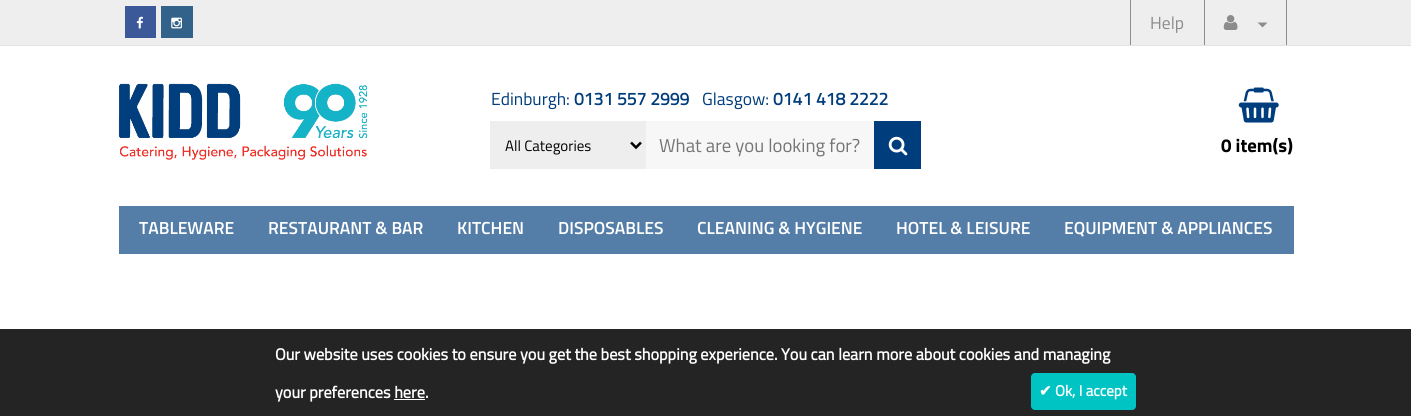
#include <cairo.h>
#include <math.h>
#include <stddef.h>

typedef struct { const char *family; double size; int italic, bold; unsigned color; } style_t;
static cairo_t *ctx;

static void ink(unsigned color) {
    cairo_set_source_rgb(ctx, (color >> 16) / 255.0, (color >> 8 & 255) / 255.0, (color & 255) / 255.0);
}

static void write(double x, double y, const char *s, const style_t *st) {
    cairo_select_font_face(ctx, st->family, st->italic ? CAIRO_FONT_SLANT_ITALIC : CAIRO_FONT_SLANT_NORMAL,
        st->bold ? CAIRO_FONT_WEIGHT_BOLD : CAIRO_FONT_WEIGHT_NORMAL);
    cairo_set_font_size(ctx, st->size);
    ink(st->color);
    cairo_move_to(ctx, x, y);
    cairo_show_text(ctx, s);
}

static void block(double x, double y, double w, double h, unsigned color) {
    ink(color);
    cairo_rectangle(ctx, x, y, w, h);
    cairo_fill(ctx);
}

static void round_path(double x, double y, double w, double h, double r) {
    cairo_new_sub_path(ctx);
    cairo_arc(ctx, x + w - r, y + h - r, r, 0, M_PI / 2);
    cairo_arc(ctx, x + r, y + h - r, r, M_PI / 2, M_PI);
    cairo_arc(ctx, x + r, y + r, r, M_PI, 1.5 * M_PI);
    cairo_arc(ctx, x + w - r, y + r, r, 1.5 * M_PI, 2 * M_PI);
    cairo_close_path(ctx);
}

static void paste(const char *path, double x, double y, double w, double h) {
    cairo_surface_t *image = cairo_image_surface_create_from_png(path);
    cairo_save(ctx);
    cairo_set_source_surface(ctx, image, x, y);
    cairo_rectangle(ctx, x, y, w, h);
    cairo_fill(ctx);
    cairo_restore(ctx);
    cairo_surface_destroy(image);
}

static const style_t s1 = {"Titillium Web", 17.5, 0, 0, 0x8c8c8c};
static const style_t s2 = {"Titillium Web", 17.5, 0, 0, 0x003d7c};
static const style_t s3 = {"Titillium Web", 17.5, 0, 1, 0x003d7c};
static const style_t s4 = {"Titillium Web", 15, 0, 0, 0x000000};
static const style_t s5 = {"Titillium Web", 18.75, 0, 0, 0x757575};
static const style_t s6 = {"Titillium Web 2", 18.75, 0, 1, 0x000000};
static const style_t s7 = {"Titillium Web SemiBold", 17.5, 0, 0, 0xffffff};
static const style_t s8 = {"Titillium Web", 16.25, 0, 1, 0xffffff};
static const style_t s9 = {"DejaVu Sans", 15, 0, 1, 0xffffff};
static const style_t s10 = {"Titillium Web", 15, 0, 1, 0xffffff};

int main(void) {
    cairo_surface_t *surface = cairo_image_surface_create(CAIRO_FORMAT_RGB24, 1411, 416);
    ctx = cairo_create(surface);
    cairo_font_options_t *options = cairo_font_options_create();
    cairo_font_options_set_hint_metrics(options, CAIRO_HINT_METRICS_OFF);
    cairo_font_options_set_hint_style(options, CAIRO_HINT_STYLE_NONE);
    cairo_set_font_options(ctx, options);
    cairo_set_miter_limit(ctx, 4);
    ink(0xffffff);
    cairo_paint(ctx);
    block(0, 0, 1411, 45, 0xeeeeee);
    block(0, 45, 1411, 1, 0xe2e2e2);
    block(125, 6, 31, 32, 0x3b5998);
    paste("pic1.png", 136, 16, 7, 13);
    block(161, 6, 32, 32, 0x32628a);
    paste("pic2.png", 171, 17, 11, 12);
    block(1130, 0, 1, 45, 0x8c8c8c);
    write(1150, 29, "Help", &s1);
    block(1286, 0, 1, 45, 0x8c8c8c);
    block(1204, 0, 1, 45, 0x8c8c8c);
    paste("pic3.png", 1223, 15, 15, 15);
    cairo_new_path(ctx);
    cairo_move_to(ctx, 1257.5, 22.5);
    cairo_line_to(ctx, 1267.5, 22.5);
    cairo_line_to(ctx, 1262.5, 27.5);
    cairo_close_path(ctx);
    cairo_fill(ctx);
    paste("pic4.png", 118, 83, 250, 77);
    write(491, 105, "Edinburgh:", &s2);
    write(574, 105, "0131 557 2999", &s3);
    write(702, 105, "Glasgow:", &s2);
    write(773, 105, "0141 418 2222", &s3);
    block(490, 121, 156, 48, 0xeeeeee);
    cairo_new_path(ctx);
    cairo_move_to(ctx, 631, 142.5);
    cairo_line_to(ctx, 636, 147.5);
    cairo_line_to(ctx, 641, 142.5);
    ink(0x000000);
    cairo_set_line_width(ctx, 2.5);
    cairo_stroke(ctx);
    write(505, 151, "All Categories", &s4);
    block(646, 121, 228, 48, 0xf7f7f7);
    write(659, 152, "What are you looking for?", &s5);
    block(874, 121, 47, 48, 0x003d7c);
    paste("pic5.png", 888, 136, 20, 20);
    paste("pic6.png", 1238, 87, 41, 36);
    write(1221, 152, "0 item(s)", &s6);
    block(119, 206, 1175, 48, 0x547da7);
    write(139, 234, "TABLEWARE", &s7);
    write(268, 234, "RESTAURANT & BAR", &s7);
    write(457, 234, "KITCHEN", &s7);
    write(558, 234, "DISPOSABLES", &s7);
    write(697, 234, "CLEANING & HYGIENE", &s7);
    write(896, 234, "HOTEL & LEISURE", &s7);
    write(1064, 234, "EQUIPMENT & APPLIANCES", &s7);
    block(0, 329, 1411, 87, 0x242424);
    write(275, 360, "Our website uses cookies to ensure you get the best shopping experience. You can learn more about cookies and managing", &s8);
    write(275, 398, "your preferences here.", &s8);
    ink(0x00c4c4);
    round_path(1031, 373, 105, 37, 4);
    cairo_fill(ctx);
    write(1039, 396, "✔", &s9);
    write(1055, 396, "Ok, I accept", &s10);
    block(394, 399, 31, 1, 0xffffff);
    cairo_surface_write_to_png(surface, "screenshot.png");
    cairo_font_options_destroy(options);
    cairo_destroy(ctx);
    cairo_surface_destroy(surface);
    return 0;
}
